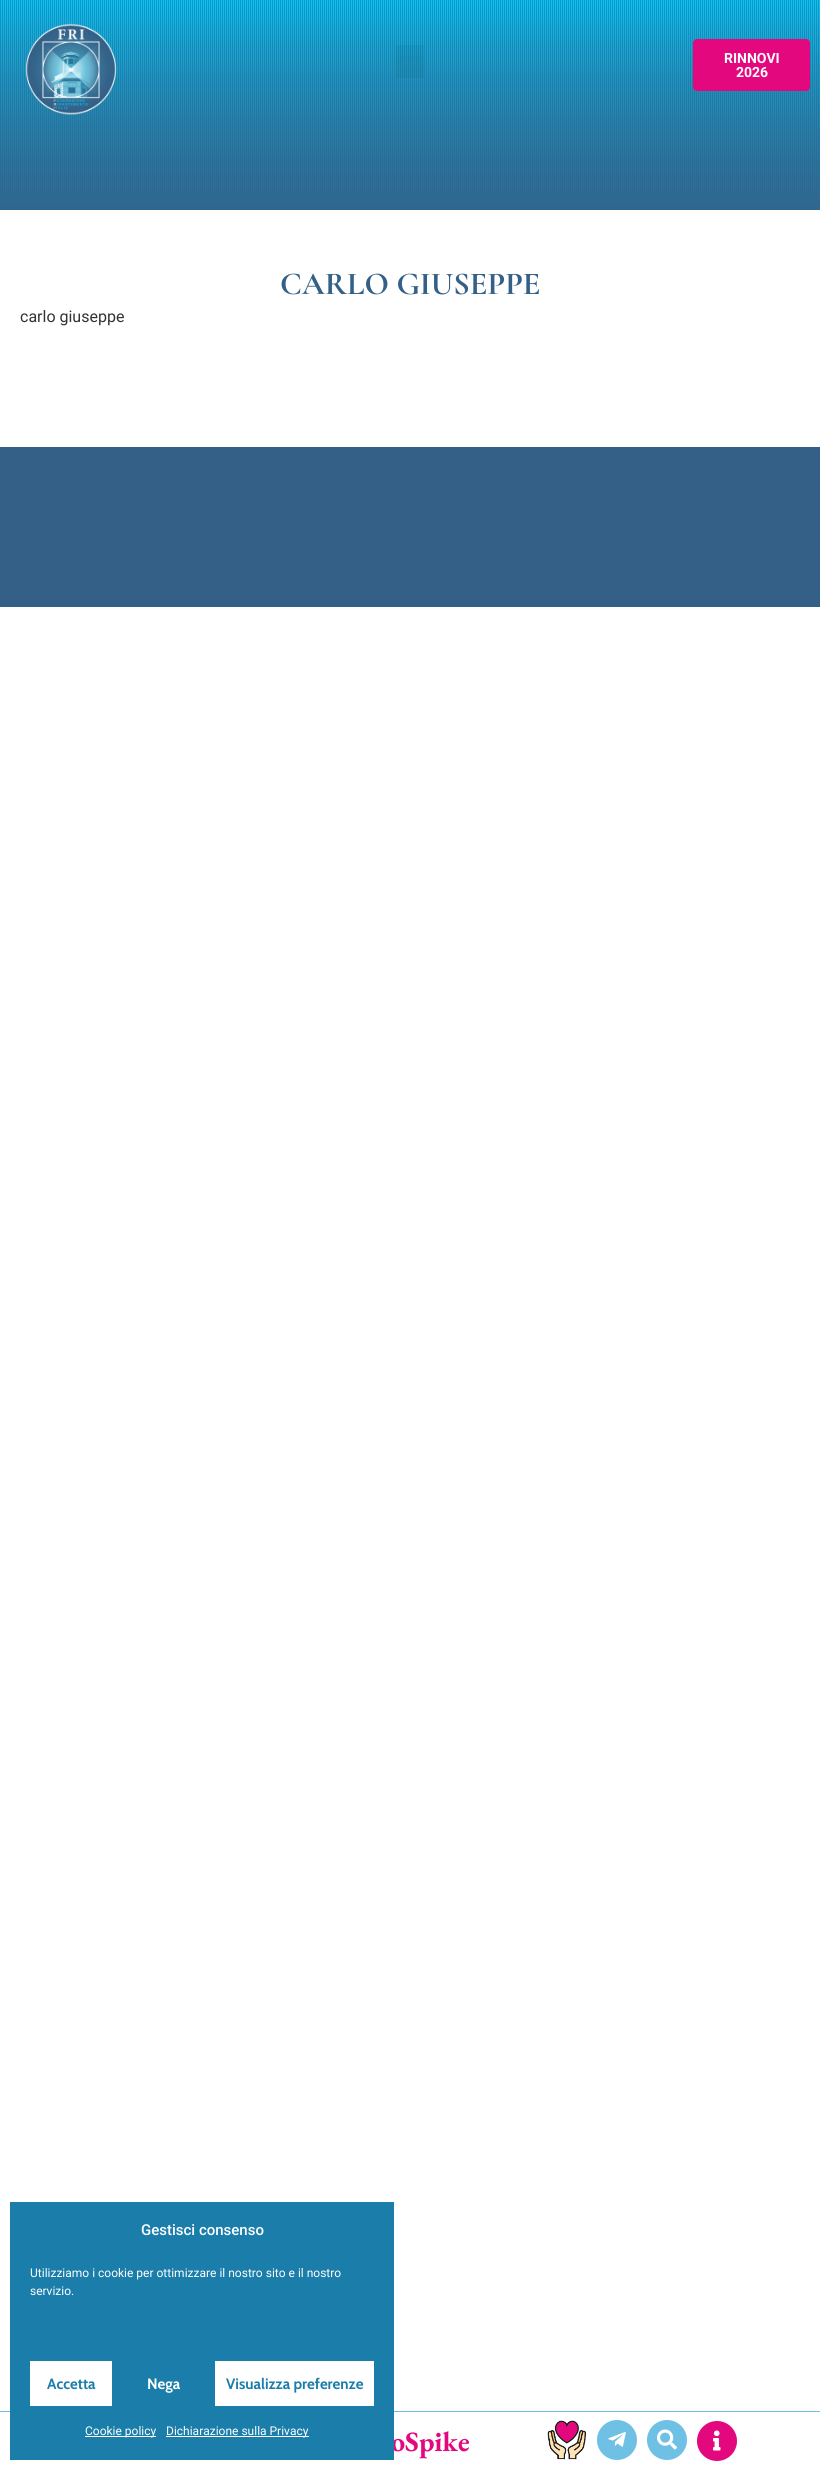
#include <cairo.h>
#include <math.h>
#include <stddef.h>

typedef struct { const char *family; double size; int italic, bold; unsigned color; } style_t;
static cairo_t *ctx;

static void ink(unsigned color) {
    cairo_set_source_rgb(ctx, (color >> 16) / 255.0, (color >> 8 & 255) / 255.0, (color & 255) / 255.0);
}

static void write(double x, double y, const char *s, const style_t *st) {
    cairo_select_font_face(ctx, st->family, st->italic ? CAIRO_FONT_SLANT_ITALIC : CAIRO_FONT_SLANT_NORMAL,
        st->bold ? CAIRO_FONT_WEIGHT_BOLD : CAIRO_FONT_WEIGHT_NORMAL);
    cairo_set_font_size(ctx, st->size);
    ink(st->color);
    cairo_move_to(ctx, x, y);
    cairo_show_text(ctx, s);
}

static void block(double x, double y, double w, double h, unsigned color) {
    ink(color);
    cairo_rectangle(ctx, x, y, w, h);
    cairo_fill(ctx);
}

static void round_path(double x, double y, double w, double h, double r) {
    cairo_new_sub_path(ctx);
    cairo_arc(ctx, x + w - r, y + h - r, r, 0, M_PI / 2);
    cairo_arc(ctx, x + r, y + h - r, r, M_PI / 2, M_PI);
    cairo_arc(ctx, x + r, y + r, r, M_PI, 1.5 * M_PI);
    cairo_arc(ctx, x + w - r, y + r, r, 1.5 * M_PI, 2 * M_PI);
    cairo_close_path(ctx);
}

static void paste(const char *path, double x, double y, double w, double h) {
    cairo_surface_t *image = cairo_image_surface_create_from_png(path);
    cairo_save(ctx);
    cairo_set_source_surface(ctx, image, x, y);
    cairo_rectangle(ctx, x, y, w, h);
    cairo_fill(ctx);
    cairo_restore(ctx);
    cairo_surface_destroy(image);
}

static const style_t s1 = {"Roboto", 14, 0, 1, 0xffffff};
static const style_t s2 = {"Cormorant Garamond Light", 32, 0, 0, 0x346087};
static const style_t s3 = {"Roboto", 16, 0, 0, 0x333333};
static const style_t s4 = {"EB Garamond", 28, 0, 1, 0xe4087e};
static const style_t s5 = {"Roboto Medium", 15, 0, 0, 0xffffff};
static const style_t s6 = {"Roboto", 12, 0, 0, 0xffffff};
static const style_t s7 = {"Cabin", 15, 0, 1, 0x1a7daa};
static const style_t s8 = {"Cabin", 15, 0, 1, 0xffffff};

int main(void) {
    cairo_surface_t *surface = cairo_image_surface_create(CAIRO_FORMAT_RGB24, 820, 2470);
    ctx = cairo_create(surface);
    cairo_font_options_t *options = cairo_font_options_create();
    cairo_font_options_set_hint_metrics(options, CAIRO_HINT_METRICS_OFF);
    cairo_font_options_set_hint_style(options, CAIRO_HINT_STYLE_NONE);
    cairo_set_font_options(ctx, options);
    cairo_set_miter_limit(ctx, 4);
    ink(0xffffff);
    cairo_paint(ctx);
    block(0, 0, 820, 607, 0x346087);
    paste("pic1.png", 0, 0, 820, 210);
    paste("pic2.png", 25, 23, 92, 92);
    cairo_set_source_rgba(ctx, 0, 0, 0, 0.05);
    cairo_rectangle(ctx, 396, 45, 28, 33);
    cairo_fill(ctx);
    ink(0xe4087e);
    round_path(693, 39, 117, 52, 4);
    cairo_fill(ctx);
    write(724, 63, "RINNOVI", &s1);
    write(736, 77, "2026", &s1);
    block(0, 210, 820, 237, 0xffffff);
    write(280, 294, "CARLO GIUSEPPE", &s2);
    write(20, 322, "carlo giuseppe", &s3);
    block(0, 2411, 820, 1, 0x6ec1e4);
    write(391, 2451, "oSpike", &s4);
    block(10, 2202, 384, 258, 0x1a7daa);
    write(141, 2235, "Gestisci consenso", &s5);
    write(30, 2277, "Utilizziamo i cookie per ottimizzare il nostro sito e il nostro", &s6);
    write(30, 2295, "servizio.", &s6);
    block(30, 2361, 82, 45, 0xffffff);
    write(47, 2389, "Accetta", &s7);
    write(147, 2389, "Nega", &s8);
    block(215, 2361, 159, 45, 0xffffff);
    write(226, 2389, "Visualizza preferenze", &s7);
    block(85, 2436, 71, 1, 0xffffff);
    write(85, 2435, "Cookie policy", &s6);
    block(166, 2436, 143, 1, 0xffffff);
    write(166, 2435, "Dichiarazione sulla Privacy", &s6);
    paste("pic3.png", 547, 2420, 40, 40);
    ink(0x6ec1e4);
    cairo_arc(ctx, 617, 2440, 20, 0, 2 * M_PI);
    cairo_fill(ctx);
    paste("pic4.png", 608, 2432, 18, 15);
    cairo_arc(ctx, 667, 2440, 20, 0, 2 * M_PI);
    cairo_fill(ctx);
    paste("pic5.png", 657, 2429, 20, 21);
    ink(0xe4087e);
    cairo_arc(ctx, 717, 2441, 20, 0, 2 * M_PI);
    cairo_fill(ctx);
    paste("pic6.png", 713, 2430, 8, 21);
    cairo_surface_write_to_png(surface, "screenshot.png");
    cairo_font_options_destroy(options);
    cairo_destroy(ctx);
    cairo_surface_destroy(surface);
    return 0;
}
